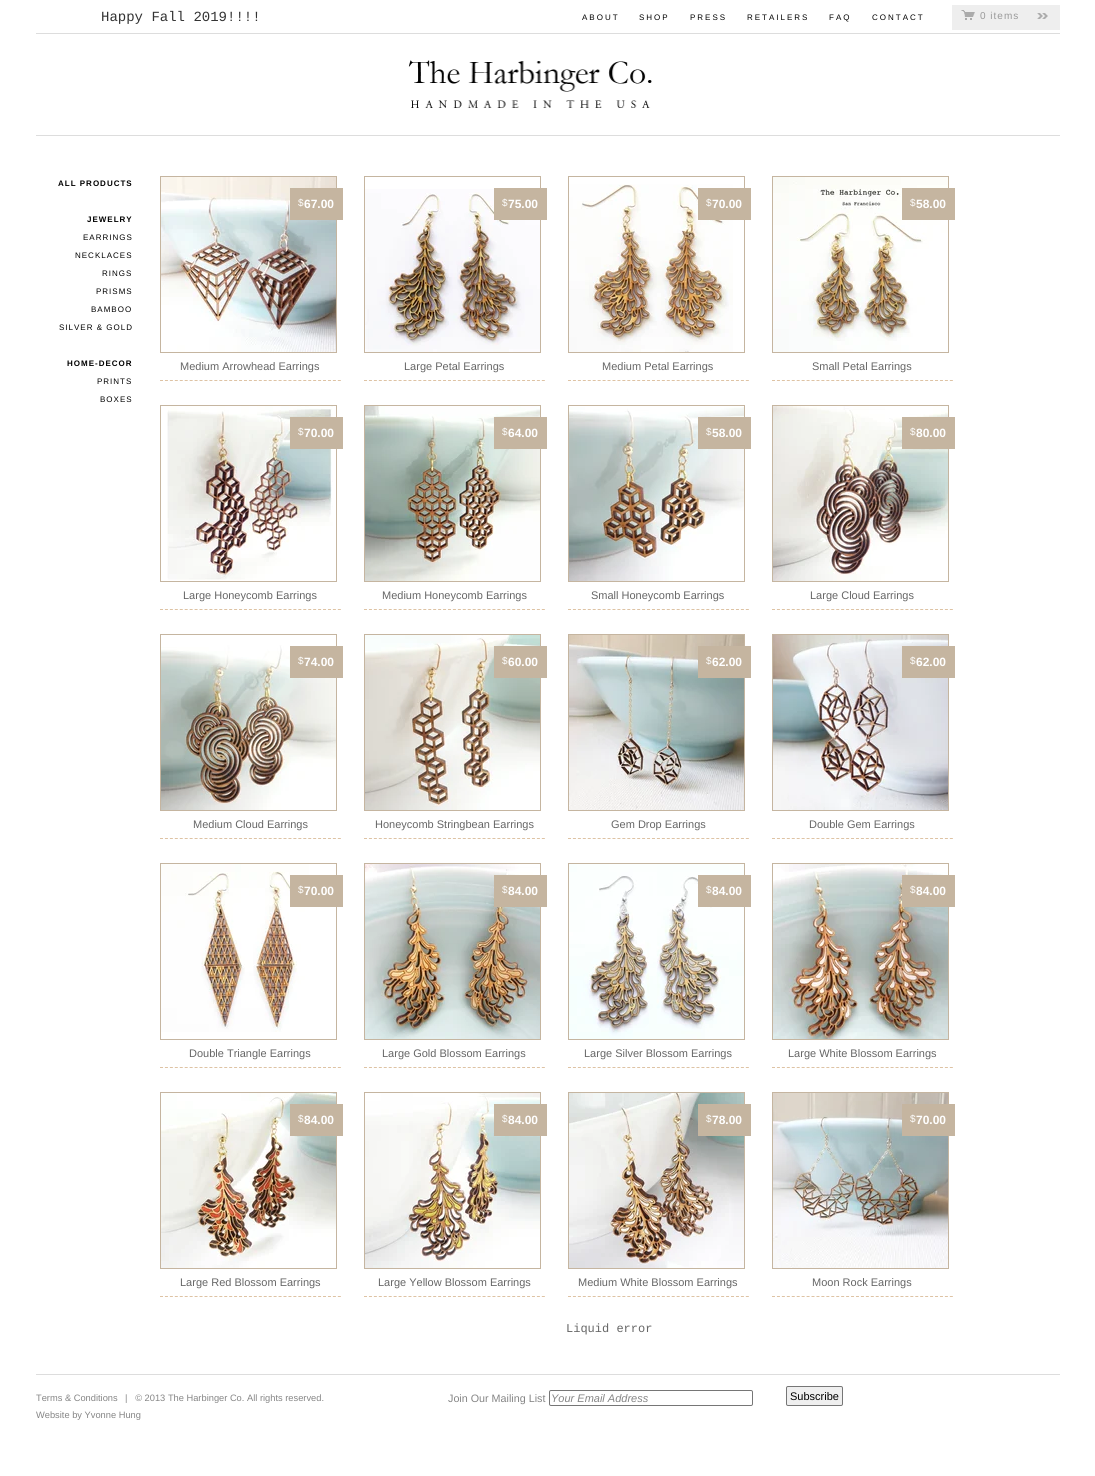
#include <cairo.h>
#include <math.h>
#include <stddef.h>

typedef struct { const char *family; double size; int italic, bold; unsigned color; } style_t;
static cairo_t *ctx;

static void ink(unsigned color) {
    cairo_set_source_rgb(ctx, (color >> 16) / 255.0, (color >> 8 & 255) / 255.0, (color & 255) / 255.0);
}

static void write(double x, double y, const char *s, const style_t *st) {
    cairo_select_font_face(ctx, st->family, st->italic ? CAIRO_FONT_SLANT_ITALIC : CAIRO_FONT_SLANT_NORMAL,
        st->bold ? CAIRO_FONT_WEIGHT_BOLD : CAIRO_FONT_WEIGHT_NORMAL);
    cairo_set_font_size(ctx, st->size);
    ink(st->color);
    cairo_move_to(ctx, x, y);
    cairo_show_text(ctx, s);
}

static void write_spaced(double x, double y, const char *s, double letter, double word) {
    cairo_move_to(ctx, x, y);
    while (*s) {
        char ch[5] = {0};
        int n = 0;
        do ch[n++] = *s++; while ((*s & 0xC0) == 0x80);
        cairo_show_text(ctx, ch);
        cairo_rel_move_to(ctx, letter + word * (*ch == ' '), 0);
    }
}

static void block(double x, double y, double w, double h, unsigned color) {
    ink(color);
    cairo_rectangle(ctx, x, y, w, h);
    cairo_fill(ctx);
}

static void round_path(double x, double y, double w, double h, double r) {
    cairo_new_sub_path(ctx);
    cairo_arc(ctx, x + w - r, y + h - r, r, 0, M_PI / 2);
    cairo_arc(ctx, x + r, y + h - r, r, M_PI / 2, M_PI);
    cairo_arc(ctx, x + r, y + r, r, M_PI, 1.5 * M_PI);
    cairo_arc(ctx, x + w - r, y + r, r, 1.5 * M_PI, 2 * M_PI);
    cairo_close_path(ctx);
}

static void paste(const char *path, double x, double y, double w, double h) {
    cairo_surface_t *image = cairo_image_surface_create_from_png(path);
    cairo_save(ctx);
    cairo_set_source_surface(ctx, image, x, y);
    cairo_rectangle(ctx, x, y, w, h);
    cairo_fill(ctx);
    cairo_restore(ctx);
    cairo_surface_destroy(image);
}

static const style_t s1 = {"Liberation Mono", 14, 0, 0, 0x333333};
static const style_t s2 = {"Liberation Sans", 10, 0, 0, 0xffffff};
static const style_t s3 = {"Liberation Sans", 12, 0, 1, 0xffffff};
static const style_t s4 = {"Liberation Sans", 11, 0, 0, 0x666666};
static const style_t s5 = {"Liberation Mono", 12, 0, 0, 0x666666};
static const style_t s6 = {"Liberation Sans", 9.3, 0, 0, 0x858585};
static const style_t s7 = {"Liberation Sans", 10.75, 0, 0, 0x858585};
static const style_t s8 = {"Liberation Sans", 11, 1, 0, 0x858585};
static const style_t s9 = {"Liberation Sans", 11, 0, 0, 0x000000};

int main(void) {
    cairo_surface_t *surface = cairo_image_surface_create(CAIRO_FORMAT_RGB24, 1095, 1476);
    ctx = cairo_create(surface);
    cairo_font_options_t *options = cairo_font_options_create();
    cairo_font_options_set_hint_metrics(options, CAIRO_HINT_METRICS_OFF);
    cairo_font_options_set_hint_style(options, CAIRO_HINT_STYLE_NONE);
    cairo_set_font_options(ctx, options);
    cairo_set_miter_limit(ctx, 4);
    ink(0xffffff);
    cairo_paint(ctx);
    block(36, 135, 1024, 1, 0xdddddd);
    write(101, 21, "Happy Fall 2019!!!!", &s1);
    block(36, 33, 1024, 1, 0xdddddd);
    cairo_select_font_face(ctx, "Liberation Sans", CAIRO_FONT_SLANT_NORMAL, CAIRO_FONT_WEIGHT_NORMAL);
    cairo_set_font_size(ctx, 8);
    ink(0x000000);
    write_spaced(582, 20, "ABOUT", 2, 0);
    write_spaced(639, 20, "SHOP", 2, 0);
    write_spaced(690, 20, "PRESS", 2, 0);
    write_spaced(747, 20, "RETAILERS", 2, 0);
    write_spaced(829, 20, "FAQ", 2, 0);
    write_spaced(872, 20, "CONTACT", 2, 0);
    block(952, 5, 108, 25, 0xeeeeee);
    paste("pic1.png", 961, 10, 14, 10);
    cairo_set_font_size(ctx, 10);
    ink(0x999999);
    write_spaced(980, 19, "0 items", 1, 0);
    paste("pic2.png", 1037, 13, 11, 6);
    paste("pic3.png", 408, 60, 244, 48);
    cairo_select_font_face(ctx, "Liberation Sans", CAIRO_FONT_SLANT_NORMAL, CAIRO_FONT_WEIGHT_BOLD);
    cairo_set_font_size(ctx, 8);
    ink(0x000000);
    write_spaced(58, 186, "ALL PRODUCTS", 1, 0);
    write_spaced(87, 222, "JEWELRY", 1, 0);
    cairo_select_font_face(ctx, "Liberation Sans", CAIRO_FONT_SLANT_NORMAL, CAIRO_FONT_WEIGHT_NORMAL);
    write_spaced(83, 240, "EARRINGS", 1, 0);
    write_spaced(75, 258, "NECKLACES", 1, 0);
    write_spaced(102, 276, "RINGS", 1, 0);
    write_spaced(96, 294, "PRISMS", 1, 0);
    write_spaced(91, 312, "BAMBOO", 1, 0);
    write_spaced(59, 330, "SILVER & GOLD", 1, 0);
    cairo_select_font_face(ctx, "Liberation Sans", CAIRO_FONT_SLANT_NORMAL, CAIRO_FONT_WEIGHT_BOLD);
    write_spaced(67, 366, "HOME-DECOR", 1, 0);
    cairo_select_font_face(ctx, "Liberation Sans", CAIRO_FONT_SLANT_NORMAL, CAIRO_FONT_WEIGHT_NORMAL);
    write_spaced(97, 384, "PRINTS", 1, 0);
    write_spaced(100, 402, "BOXES", 1, 0);
    cairo_rectangle(ctx, 160.5, 176.5, 176, 176);
    ink(0xc5b5a0);
    cairo_set_line_width(ctx, 1);
    cairo_stroke(ctx);
    paste("pic4.png", 161, 177, 175, 175);
    block(290, 188, 53, 32, 0xc5b5a0);
    write(298, 206, "$", &s2);
    write(304, 208, "67.00", &s3);
    cairo_new_path(ctx);
    cairo_move_to(ctx, 160, 380.5);
    cairo_line_to(ctx, 341, 380.5);
    ink(0xdec3a4);
    cairo_set_dash(ctx, (double[]){3, 1.94}, 2, 0);
    cairo_stroke(ctx);
    write(180, 370, "Medium Arrowhead Earrings", &s4);
    cairo_rectangle(ctx, 364.5, 176.5, 176, 176);
    ink(0xc5b5a0);
    cairo_set_dash(ctx, NULL, 0, 0);
    cairo_stroke(ctx);
    paste("pic5.png", 365, 189, 175, 163);
    block(494, 188, 53, 32, 0xc5b5a0);
    write(502, 206, "$", &s2);
    write(508, 208, "75.00", &s3);
    cairo_new_path(ctx);
    cairo_move_to(ctx, 364, 380.5);
    cairo_line_to(ctx, 545, 380.5);
    ink(0xdec3a4);
    cairo_set_dash(ctx, (double[]){3, 1.94}, 2, 0);
    cairo_stroke(ctx);
    write(404, 370, "Large Petal Earrings", &s4);
    cairo_rectangle(ctx, 568.5, 176.5, 176, 176);
    ink(0xc5b5a0);
    cairo_set_dash(ctx, NULL, 0, 0);
    cairo_stroke(ctx);
    paste("pic6.png", 569, 184, 164, 168);
    block(698, 188, 53, 32, 0xc5b5a0);
    write(706, 206, "$", &s2);
    write(712, 208, "70.00", &s3);
    cairo_new_path(ctx);
    cairo_move_to(ctx, 568, 380.5);
    cairo_line_to(ctx, 749, 380.5);
    ink(0xdec3a4);
    cairo_set_dash(ctx, (double[]){3, 1.94}, 2, 0);
    cairo_stroke(ctx);
    write(602, 370, "Medium Petal Earrings", &s4);
    cairo_rectangle(ctx, 772.5, 176.5, 176, 176);
    ink(0xc5b5a0);
    cairo_set_dash(ctx, NULL, 0, 0);
    cairo_stroke(ctx);
    paste("pic7.png", 773, 177, 175, 175);
    block(902, 188, 53, 32, 0xc5b5a0);
    write(910, 206, "$", &s2);
    write(916, 208, "58.00", &s3);
    cairo_new_path(ctx);
    cairo_move_to(ctx, 772, 380.5);
    cairo_line_to(ctx, 953, 380.5);
    ink(0xdec3a4);
    cairo_set_dash(ctx, (double[]){3, 1.94}, 2, 0);
    cairo_stroke(ctx);
    write(812, 370, "Small Petal Earrings", &s4);
    cairo_rectangle(ctx, 160.5, 405.5, 176, 176);
    ink(0xc5b5a0);
    cairo_set_dash(ctx, NULL, 0, 0);
    cairo_stroke(ctx);
    paste("pic8.png", 167, 406, 166, 174);
    block(290, 417, 53, 32, 0xc5b5a0);
    write(298, 435, "$", &s2);
    write(304, 437, "70.00", &s3);
    cairo_new_path(ctx);
    cairo_move_to(ctx, 160, 609.5);
    cairo_line_to(ctx, 341, 609.5);
    ink(0xdec3a4);
    cairo_set_dash(ctx, (double[]){3, 1.94}, 2, 0);
    cairo_stroke(ctx);
    write(183, 599, "Large Honeycomb Earrings", &s4);
    cairo_rectangle(ctx, 364.5, 405.5, 176, 176);
    ink(0xc5b5a0);
    cairo_set_dash(ctx, NULL, 0, 0);
    cairo_stroke(ctx);
    paste("pic9.png", 365, 406, 175, 175);
    block(494, 417, 53, 32, 0xc5b5a0);
    write(502, 435, "$", &s2);
    write(508, 437, "64.00", &s3);
    cairo_new_path(ctx);
    cairo_move_to(ctx, 364, 609.5);
    cairo_line_to(ctx, 545, 609.5);
    ink(0xdec3a4);
    cairo_set_dash(ctx, (double[]){3, 1.94}, 2, 0);
    cairo_stroke(ctx);
    write(382, 599, "Medium Honeycomb Earrings", &s4);
    cairo_rectangle(ctx, 568.5, 405.5, 176, 176);
    ink(0xc5b5a0);
    cairo_set_dash(ctx, NULL, 0, 0);
    cairo_stroke(ctx);
    paste("pic10.png", 569, 407, 175, 174);
    block(698, 417, 53, 32, 0xc5b5a0);
    write(706, 435, "$", &s2);
    write(712, 437, "58.00", &s3);
    cairo_new_path(ctx);
    cairo_move_to(ctx, 568, 609.5);
    cairo_line_to(ctx, 749, 609.5);
    ink(0xdec3a4);
    cairo_set_dash(ctx, (double[]){3, 1.94}, 2, 0);
    cairo_stroke(ctx);
    write(591, 599, "Small Honeycomb Earrings", &s4);
    cairo_rectangle(ctx, 772.5, 405.5, 176, 176);
    ink(0xc5b5a0);
    cairo_set_dash(ctx, NULL, 0, 0);
    cairo_stroke(ctx);
    paste("pic11.png", 773, 406, 175, 175);
    block(902, 417, 53, 32, 0xc5b5a0);
    write(910, 435, "$", &s2);
    write(916, 437, "80.00", &s3);
    cairo_new_path(ctx);
    cairo_move_to(ctx, 772, 609.5);
    cairo_line_to(ctx, 953, 609.5);
    ink(0xdec3a4);
    cairo_set_dash(ctx, (double[]){3, 1.94}, 2, 0);
    cairo_stroke(ctx);
    write(810, 599, "Large Cloud Earrings", &s4);
    cairo_rectangle(ctx, 160.5, 634.5, 176, 176);
    ink(0xc5b5a0);
    cairo_set_dash(ctx, NULL, 0, 0);
    cairo_stroke(ctx);
    paste("pic12.png", 161, 645, 175, 165);
    block(290, 646, 53, 32, 0xc5b5a0);
    write(298, 664, "$", &s2);
    write(304, 666, "74.00", &s3);
    cairo_new_path(ctx);
    cairo_move_to(ctx, 160, 838.5);
    cairo_line_to(ctx, 341, 838.5);
    ink(0xdec3a4);
    cairo_set_dash(ctx, (double[]){3, 1.94}, 2, 0);
    cairo_stroke(ctx);
    write(193, 828, "Medium Cloud Earrings", &s4);
    cairo_rectangle(ctx, 364.5, 634.5, 176, 176);
    ink(0xc5b5a0);
    cairo_set_dash(ctx, NULL, 0, 0);
    cairo_stroke(ctx);
    paste("pic13.png", 365, 635, 175, 175);
    block(494, 646, 53, 32, 0xc5b5a0);
    write(502, 664, "$", &s2);
    write(508, 666, "60.00", &s3);
    cairo_new_path(ctx);
    cairo_move_to(ctx, 364, 838.5);
    cairo_line_to(ctx, 545, 838.5);
    ink(0xdec3a4);
    cairo_set_dash(ctx, (double[]){3, 1.94}, 2, 0);
    cairo_stroke(ctx);
    write(375, 828, "Honeycomb Stringbean Earrings", &s4);
    cairo_rectangle(ctx, 568.5, 634.5, 176, 176);
    ink(0xc5b5a0);
    cairo_set_dash(ctx, NULL, 0, 0);
    cairo_stroke(ctx);
    paste("pic14.png", 569, 635, 175, 175);
    block(698, 646, 53, 32, 0xc5b5a0);
    write(706, 664, "$", &s2);
    write(712, 666, "62.00", &s3);
    cairo_new_path(ctx);
    cairo_move_to(ctx, 568, 838.5);
    cairo_line_to(ctx, 749, 838.5);
    ink(0xdec3a4);
    cairo_set_dash(ctx, (double[]){3, 1.94}, 2, 0);
    cairo_stroke(ctx);
    write(611, 828, "Gem Drop Earrings", &s4);
    cairo_rectangle(ctx, 772.5, 634.5, 176, 176);
    ink(0xc5b5a0);
    cairo_set_dash(ctx, NULL, 0, 0);
    cairo_stroke(ctx);
    paste("pic15.png", 773, 635, 175, 175);
    block(902, 646, 53, 32, 0xc5b5a0);
    write(910, 664, "$", &s2);
    write(916, 666, "62.00", &s3);
    cairo_new_path(ctx);
    cairo_move_to(ctx, 772, 838.5);
    cairo_line_to(ctx, 953, 838.5);
    ink(0xdec3a4);
    cairo_set_dash(ctx, (double[]){3, 1.94}, 2, 0);
    cairo_stroke(ctx);
    write(809, 828, "Double Gem Earrings", &s4);
    cairo_rectangle(ctx, 160.5, 863.5, 176, 176);
    ink(0xc5b5a0);
    cairo_set_dash(ctx, NULL, 0, 0);
    cairo_stroke(ctx);
    paste("pic16.png", 161, 864, 148, 168);
    block(290, 875, 53, 32, 0xc5b5a0);
    write(298, 893, "$", &s2);
    write(304, 895, "70.00", &s3);
    cairo_new_path(ctx);
    cairo_move_to(ctx, 160, 1067.5);
    cairo_line_to(ctx, 341, 1067.5);
    ink(0xdec3a4);
    cairo_set_dash(ctx, (double[]){3, 1.94}, 2, 0);
    cairo_stroke(ctx);
    write(189, 1057, "Double Triangle Earrings", &s4);
    cairo_rectangle(ctx, 364.5, 863.5, 176, 176);
    ink(0xc5b5a0);
    cairo_set_dash(ctx, NULL, 0, 0);
    cairo_stroke(ctx);
    paste("pic17.png", 365, 864, 175, 175);
    block(494, 875, 53, 32, 0xc5b5a0);
    write(502, 893, "$", &s2);
    write(508, 895, "84.00", &s3);
    cairo_new_path(ctx);
    cairo_move_to(ctx, 364, 1067.5);
    cairo_line_to(ctx, 545, 1067.5);
    ink(0xdec3a4);
    cairo_set_dash(ctx, (double[]){3, 1.94}, 2, 0);
    cairo_stroke(ctx);
    write(382, 1057, "Large Gold Blossom Earrings", &s4);
    cairo_rectangle(ctx, 568.5, 863.5, 176, 176);
    ink(0xc5b5a0);
    cairo_set_dash(ctx, NULL, 0, 0);
    cairo_stroke(ctx);
    paste("pic18.png", 569, 864, 175, 175);
    block(698, 875, 53, 32, 0xc5b5a0);
    write(706, 893, "$", &s2);
    write(712, 895, "84.00", &s3);
    cairo_new_path(ctx);
    cairo_move_to(ctx, 568, 1067.5);
    cairo_line_to(ctx, 749, 1067.5);
    ink(0xdec3a4);
    cairo_set_dash(ctx, (double[]){3, 1.94}, 2, 0);
    cairo_stroke(ctx);
    write(584, 1057, "Large Silver Blossom Earrings", &s4);
    cairo_rectangle(ctx, 772.5, 863.5, 176, 176);
    ink(0xc5b5a0);
    cairo_set_dash(ctx, NULL, 0, 0);
    cairo_stroke(ctx);
    paste("pic19.png", 773, 864, 175, 175);
    block(902, 875, 53, 32, 0xc5b5a0);
    write(910, 893, "$", &s2);
    write(916, 895, "84.00", &s3);
    cairo_new_path(ctx);
    cairo_move_to(ctx, 772, 1067.5);
    cairo_line_to(ctx, 953, 1067.5);
    ink(0xdec3a4);
    cairo_set_dash(ctx, (double[]){3, 1.94}, 2, 0);
    cairo_stroke(ctx);
    write(788, 1057, "Large White Blossom Earrings", &s4);
    cairo_rectangle(ctx, 160.5, 1092.5, 176, 176);
    ink(0xc5b5a0);
    cairo_set_dash(ctx, NULL, 0, 0);
    cairo_stroke(ctx);
    paste("pic20.png", 161, 1093, 175, 175);
    block(290, 1104, 53, 32, 0xc5b5a0);
    write(298, 1122, "$", &s2);
    write(304, 1124, "84.00", &s3);
    cairo_new_path(ctx);
    cairo_move_to(ctx, 160, 1296.5);
    cairo_line_to(ctx, 341, 1296.5);
    ink(0xdec3a4);
    cairo_set_dash(ctx, (double[]){3, 1.94}, 2, 0);
    cairo_stroke(ctx);
    write(180, 1286, "Large Red Blossom Earrings", &s4);
    cairo_rectangle(ctx, 364.5, 1092.5, 176, 176);
    ink(0xc5b5a0);
    cairo_set_dash(ctx, NULL, 0, 0);
    cairo_stroke(ctx);
    paste("pic21.png", 365, 1093, 175, 175);
    block(494, 1104, 53, 32, 0xc5b5a0);
    write(502, 1122, "$", &s2);
    write(508, 1124, "84.00", &s3);
    cairo_new_path(ctx);
    cairo_move_to(ctx, 364, 1296.5);
    cairo_line_to(ctx, 545, 1296.5);
    ink(0xdec3a4);
    cairo_set_dash(ctx, (double[]){3, 1.94}, 2, 0);
    cairo_stroke(ctx);
    write(378, 1286, "Large Yellow Blossom Earrings", &s4);
    cairo_rectangle(ctx, 568.5, 1092.5, 176, 176);
    ink(0xc5b5a0);
    cairo_set_dash(ctx, NULL, 0, 0);
    cairo_stroke(ctx);
    paste("pic22.png", 569, 1093, 175, 175);
    block(698, 1104, 53, 32, 0xc5b5a0);
    write(706, 1122, "$", &s2);
    write(712, 1124, "78.00", &s3);
    cairo_new_path(ctx);
    cairo_move_to(ctx, 568, 1296.5);
    cairo_line_to(ctx, 749, 1296.5);
    ink(0xdec3a4);
    cairo_set_dash(ctx, (double[]){3, 1.94}, 2, 0);
    cairo_stroke(ctx);
    write(578, 1286, "Medium White Blossom Earrings", &s4);
    cairo_rectangle(ctx, 772.5, 1092.5, 176, 176);
    ink(0xc5b5a0);
    cairo_set_dash(ctx, NULL, 0, 0);
    cairo_stroke(ctx);
    paste("pic23.png", 773, 1093, 175, 175);
    block(902, 1104, 53, 32, 0xc5b5a0);
    write(910, 1122, "$", &s2);
    write(916, 1124, "70.00", &s3);
    cairo_new_path(ctx);
    cairo_move_to(ctx, 772, 1296.5);
    cairo_line_to(ctx, 953, 1296.5);
    ink(0xdec3a4);
    cairo_set_dash(ctx, (double[]){3, 1.94}, 2, 0);
    cairo_stroke(ctx);
    write(812, 1286, "Moon Rock Earrings", &s4);
    write(566, 1332, "Liquid error", &s5);
    block(36, 1374, 1024, 1, 0xdddddd);
    write(36, 1401, "Terms & Conditions", &s6);
    write(125, 1401, "|   © 2013 The Harbinger Co. All rights reserved.", &s6);
    write(36, 1418, "Website by Yvonne Hung", &s6);
    write(448, 1402, "Join Our Mailing List", &s7);
    round_path(549.5, 1390.5, 203, 15, 1.5);
    ink(0x767676);
    cairo_set_dash(ctx, NULL, 0, 0);
    cairo_stroke(ctx);
    write(551, 1402, "Your Email Address", &s8);
    ink(0xefefef);
    round_path(786.5, 1386.5, 56, 19, 1.5);
    cairo_fill_preserve(ctx);
    ink(0x767676);
    cairo_stroke(ctx);
    write(790, 1400, "Subscribe", &s9);
    cairo_surface_write_to_png(surface, "screenshot.png");
    cairo_font_options_destroy(options);
    cairo_destroy(ctx);
    cairo_surface_destroy(surface);
    return 0;
}
